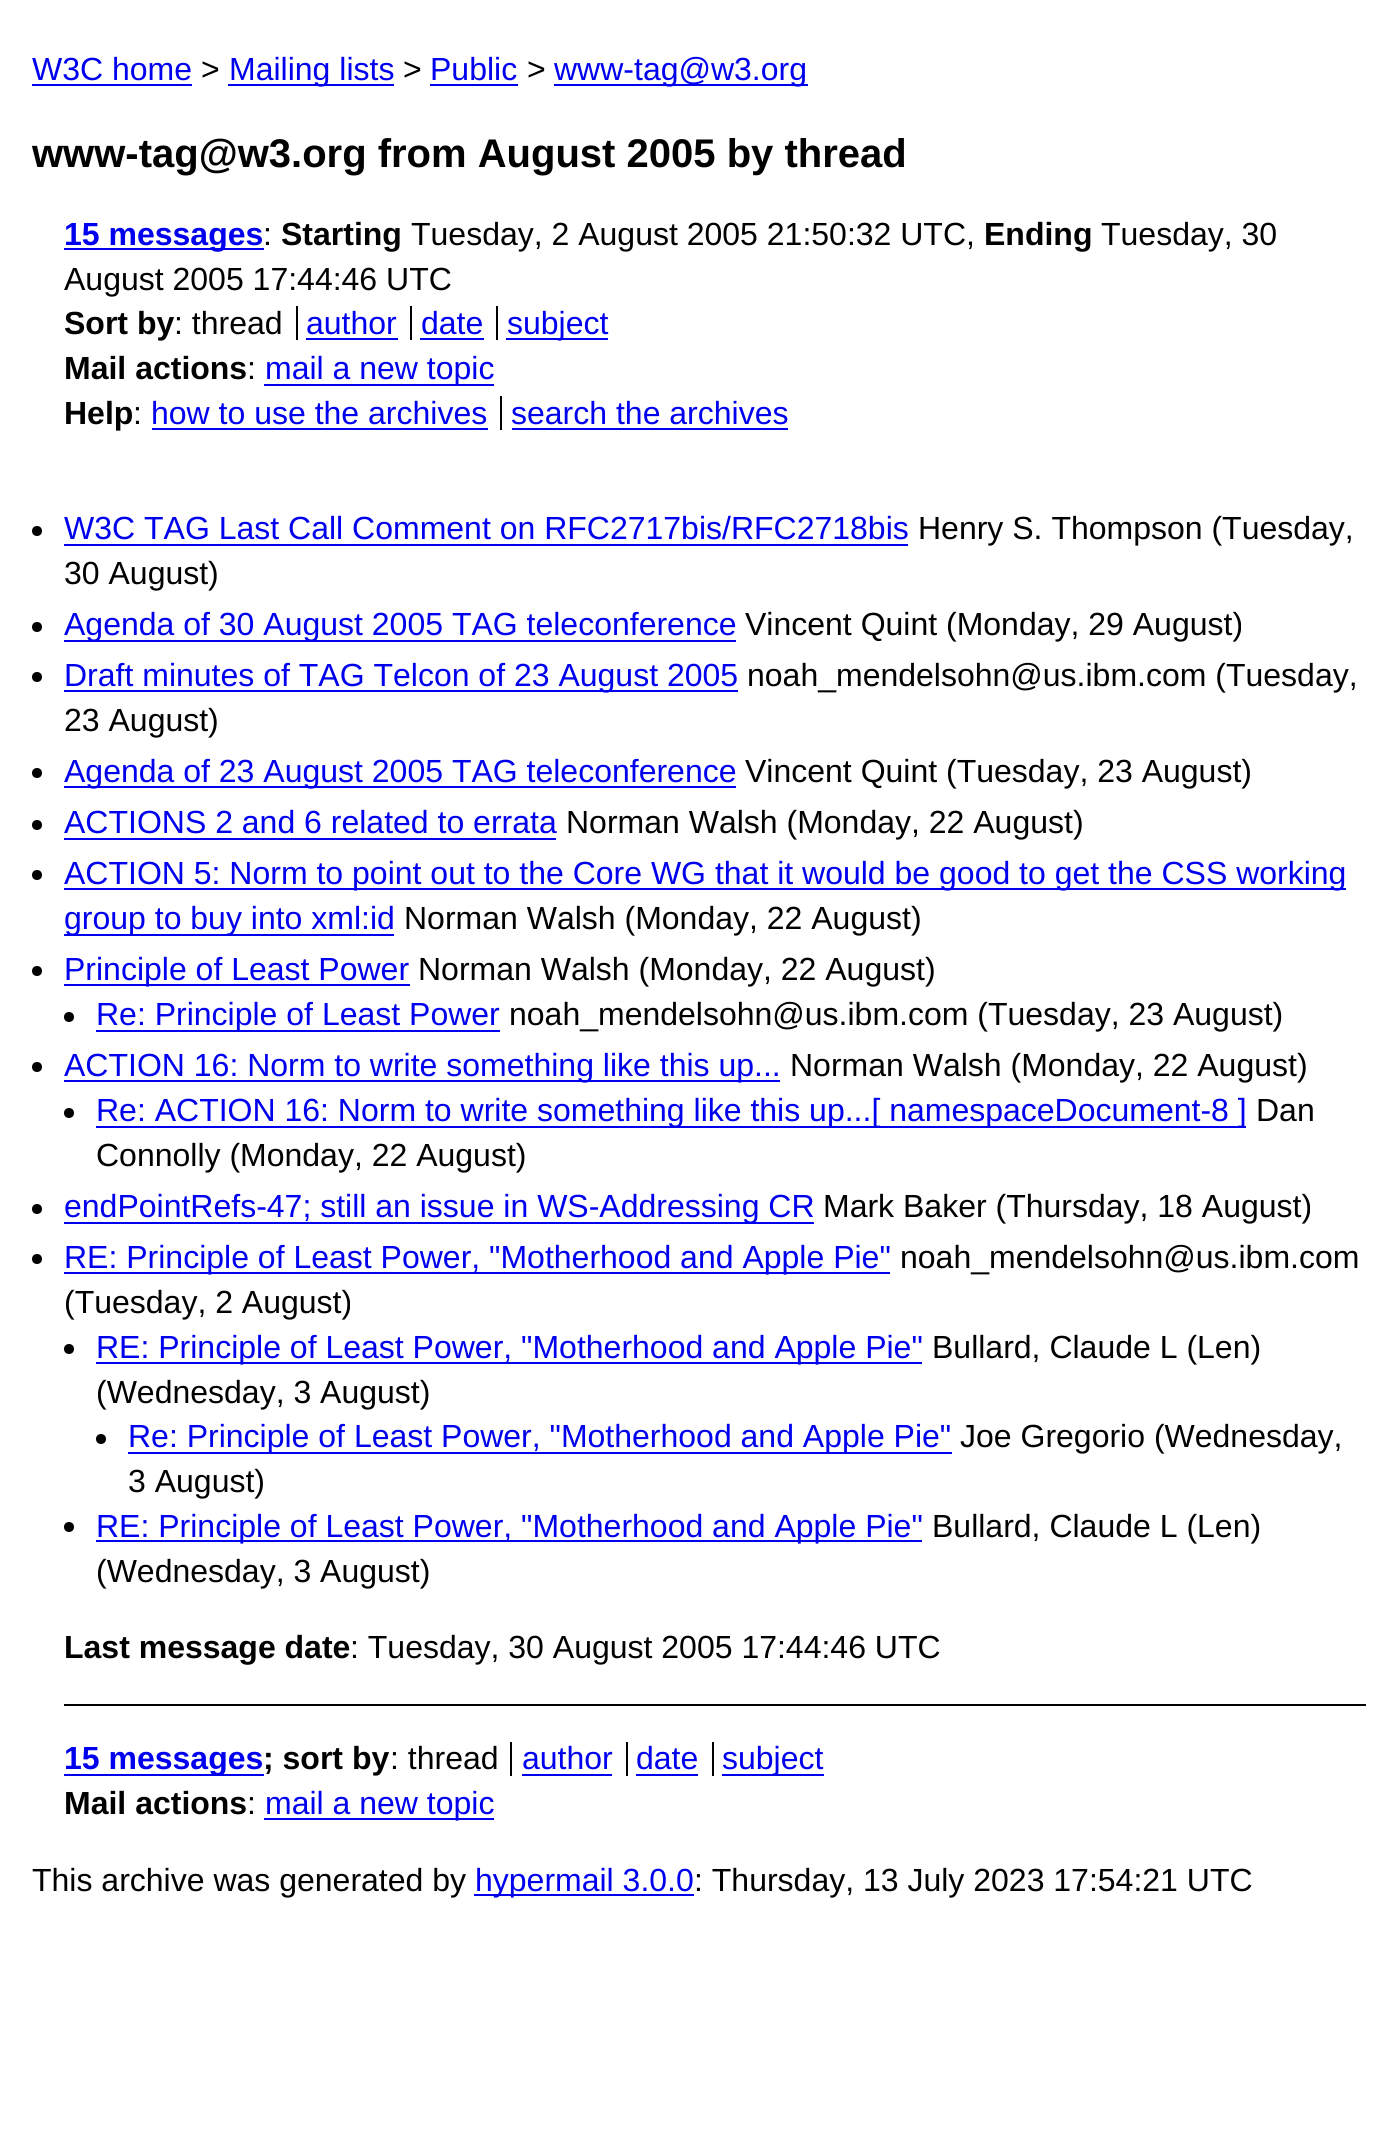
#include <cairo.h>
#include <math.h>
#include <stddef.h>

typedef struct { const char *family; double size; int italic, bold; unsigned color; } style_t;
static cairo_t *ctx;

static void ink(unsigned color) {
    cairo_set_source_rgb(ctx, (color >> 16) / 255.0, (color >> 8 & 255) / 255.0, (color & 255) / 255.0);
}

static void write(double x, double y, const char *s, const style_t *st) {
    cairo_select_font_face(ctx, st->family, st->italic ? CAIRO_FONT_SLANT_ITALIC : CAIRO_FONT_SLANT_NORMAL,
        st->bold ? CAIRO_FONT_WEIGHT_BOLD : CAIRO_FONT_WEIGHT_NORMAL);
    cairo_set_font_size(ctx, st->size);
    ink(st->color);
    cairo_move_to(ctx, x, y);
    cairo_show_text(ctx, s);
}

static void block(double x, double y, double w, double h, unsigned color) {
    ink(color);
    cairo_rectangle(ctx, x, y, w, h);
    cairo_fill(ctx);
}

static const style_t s1 = {"Liberation Sans", 32, 0, 0, 0x0000ee};
static const style_t s2 = {"Liberation Sans", 32, 0, 0, 0x000000};
static const style_t s3 = {"Liberation Sans", 40, 0, 1, 0x000000};
static const style_t s4 = {"Liberation Sans", 32, 0, 1, 0x0000ee};
static const style_t s5 = {"Liberation Sans", 32, 0, 1, 0x000000};

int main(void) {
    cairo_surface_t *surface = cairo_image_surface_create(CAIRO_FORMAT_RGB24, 1398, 2138);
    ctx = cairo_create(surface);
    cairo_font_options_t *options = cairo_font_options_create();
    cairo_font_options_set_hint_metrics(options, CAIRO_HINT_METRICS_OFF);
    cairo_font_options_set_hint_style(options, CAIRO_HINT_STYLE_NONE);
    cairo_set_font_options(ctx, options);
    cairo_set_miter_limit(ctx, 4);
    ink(0xffffff);
    cairo_paint(ctx);
    write(32, 80, "W3C home", &s1);
    block(32, 84, 160, 2, 0x0000ee);
    write(201, 80, ">", &s2);
    block(228, 84, 166, 2, 0x0000ee);
    write(229, 80, "Mailing lists", &s1);
    write(403, 80, ">", &s2);
    write(430, 80, "Public", &s1);
    block(430, 84, 88, 2, 0x0000ee);
    write(527, 80, ">", &s2);
    block(554, 84, 254, 2, 0x0000ee);
    write(554, 80, "www-tag@w3.org", &s1);
    write(32, 167, "www-tag@w3.org from August 2005 by thread", &s3);
    block(64, 248, 200, 2, 0x0000ee);
    write(64, 245, "15 messages", &s4);
    write(263, 245, ":", &s2);
    write(281, 245, "Starting", &s5);
    write(411, 245, "Tuesday, 2 August 2005 21:50:32 UTC,", &s2);
    write(984, 245, "Ending", &s5);
    write(1101, 245, "Tuesday, 30", &s2);
    write(64, 290, "August 2005 17:44:46 UTC", &s2);
    write(64, 334, "Sort by", &s5);
    write(174, 334, ": thread", &s2);
    write(306, 334, "author", &s1);
    block(296, 306, 2, 34, 0x000000);
    block(306, 338, 92, 2, 0x0000ee);
    write(421, 334, "date", &s1);
    block(410, 306, 2, 34, 0x000000);
    block(420, 338, 64, 2, 0x0000ee);
    block(506, 338, 102, 2, 0x0000ee);
    write(507, 334, "subject", &s1);
    block(496, 306, 2, 34, 0x000000);
    write(64, 379, "Mail actions", &s5);
    write(247, 379, ":", &s2);
    block(264, 384, 230, 2, 0x0000ee);
    write(265, 379, "mail a new topic", &s1);
    write(64, 424, "Help", &s5);
    write(133, 424, ":", &s2);
    write(151, 424, "how to use the archives", &s1);
    block(152, 428, 336, 2, 0x0000ee);
    write(511, 424, "search the archives", &s1);
    block(500, 396, 2, 34, 0x000000);
    block(512, 428, 276, 2, 0x0000ee);
    block(64, 1704, 1302, 2, 0x000000);
    cairo_new_path(ctx);
    cairo_arc(ctx, 37, 531, 5, 0, 2 * M_PI);
    cairo_fill(ctx);
    write(64, 539, "W3C TAG Last Call Comment on RFC2717bis/RFC2718bis", &s1);
    block(64, 544, 844, 2, 0x0000ee);
    write(918, 539, "Henry S. Thompson (Tuesday,", &s2);
    write(64, 584, "30 August)", &s2);
    cairo_new_path(ctx);
    cairo_arc(ctx, 37, 627, 5, 0, 2 * M_PI);
    cairo_fill(ctx);
    block(64, 640, 672, 2, 0x0000ee);
    write(64, 635, "Agenda of 30 August 2005 TAG teleconference", &s1);
    write(745, 635, "Vincent Quint (Monday, 29 August)", &s2);
    cairo_new_path(ctx);
    cairo_arc(ctx, 37, 677, 5, 0, 2 * M_PI);
    cairo_fill(ctx);
    block(64, 690, 674, 2, 0x0000ee);
    write(64, 686, "Draft minutes of TAG Telcon of 23 August 2005", &s1);
    write(747, 686, "noah_mendelsohn@us.ibm.com (Tuesday,", &s2);
    write(64, 731, "23 August)", &s2);
    cairo_new_path(ctx);
    cairo_arc(ctx, 37, 773, 5, 0, 2 * M_PI);
    cairo_fill(ctx);
    block(64, 786, 672, 2, 0x0000ee);
    write(64, 782, "Agenda of 23 August 2005 TAG teleconference", &s1);
    write(745, 782, "Vincent Quint (Tuesday, 23 August)", &s2);
    cairo_new_path(ctx);
    cairo_arc(ctx, 37, 825, 5, 0, 2 * M_PI);
    cairo_fill(ctx);
    write(64, 833, "ACTIONS 2 and 6 related to errata", &s1);
    block(64, 838, 492, 2, 0x0000ee);
    write(566, 833, "Norman Walsh (Monday, 22 August)", &s2);
    cairo_new_path(ctx);
    cairo_arc(ctx, 37, 875, 5, 0, 2 * M_PI);
    cairo_fill(ctx);
    block(64, 888, 1282, 2, 0x0000ee);
    write(64, 884, "ACTION 5: Norm to point out to the Core WG that it would be good to get the CSS working", &s1);
    block(64, 934, 330, 2, 0x0000ee);
    write(64, 929, "group to buy into xml:id", &s1);
    write(404, 929, "Norman Walsh (Monday, 22 August)", &s2);
    cairo_new_path(ctx);
    cairo_arc(ctx, 37, 971, 5, 0, 2 * M_PI);
    cairo_fill(ctx);
    block(64, 984, 346, 2, 0x0000ee);
    write(64, 980, "Principle of Least Power", &s1);
    write(418, 980, "Norman Walsh (Monday, 22 August)", &s2);
    cairo_new_path(ctx);
    cairo_arc(ctx, 69, 1017, 5, 0, 2 * M_PI);
    cairo_fill(ctx);
    block(96, 1030, 404, 2, 0x0000ee);
    write(96, 1025, "Re: Principle of Least Power", &s1);
    write(509, 1025, "noah_mendelsohn@us.ibm.com (Tuesday, 23 August)", &s2);
    cairo_new_path(ctx);
    cairo_arc(ctx, 37, 1067, 5, 0, 2 * M_PI);
    cairo_fill(ctx);
    block(64, 1080, 716, 2, 0x0000ee);
    write(64, 1076, "ACTION 16: Norm to write something like this up...", &s1);
    write(790, 1076, "Norman Walsh (Monday, 22 August)", &s2);
    cairo_new_path(ctx);
    cairo_arc(ctx, 69, 1113, 5, 0, 2 * M_PI);
    cairo_fill(ctx);
    block(96, 1126, 1150, 2, 0x0000ee);
    write(96, 1121, "Re: ACTION 16: Norm to write something like this up...[ namespaceDocument-8 ]", &s1);
    write(1256, 1121, "Dan", &s2);
    write(96, 1166, "Connolly (Monday, 22 August)", &s2);
    cairo_new_path(ctx);
    cairo_arc(ctx, 37, 1209, 5, 0, 2 * M_PI);
    cairo_fill(ctx);
    block(64, 1222, 750, 2, 0x0000ee);
    write(64, 1217, "endPointRefs-47; still an issue in WS-Addressing CR", &s1);
    write(823, 1217, "Mark Baker (Thursday, 18 August)", &s2);
    cairo_new_path(ctx);
    cairo_arc(ctx, 37, 1259, 5, 0, 2 * M_PI);
    cairo_fill(ctx);
    block(64, 1272, 826, 2, 0x0000ee);
    write(64, 1268, "RE: Principle of Least Power, \"Motherhood and Apple Pie\"", &s1);
    write(900, 1268, "noah_mendelsohn@us.ibm.com", &s2);
    write(64, 1313, "(Tuesday, 2 August)", &s2);
    cairo_new_path(ctx);
    cairo_arc(ctx, 69, 1349, 5, 0, 2 * M_PI);
    cairo_fill(ctx);
    block(96, 1362, 826, 2, 0x0000ee);
    write(96, 1358, "RE: Principle of Least Power, \"Motherhood and Apple Pie\"", &s1);
    write(932, 1358, "Bullard, Claude L (Len)", &s2);
    write(96, 1403, "(Wednesday, 3 August)", &s2);
    cairo_new_path(ctx);
    cairo_arc(ctx, 101, 1439, 5, 0, 2 * M_PI);
    cairo_fill(ctx);
    block(128, 1452, 824, 2, 0x0000ee);
    write(128, 1447, "Re: Principle of Least Power, \"Motherhood and Apple Pie\"", &s1);
    write(960, 1447, "Joe Gregorio (Wednesday,", &s2);
    write(128, 1492, "3 August)", &s2);
    cairo_new_path(ctx);
    cairo_arc(ctx, 69, 1527, 5, 0, 2 * M_PI);
    cairo_fill(ctx);
    block(96, 1540, 826, 2, 0x0000ee);
    write(96, 1537, "RE: Principle of Least Power, \"Motherhood and Apple Pie\"", &s1);
    write(932, 1537, "Bullard, Claude L (Len)", &s2);
    write(96, 1582, "(Wednesday, 3 August)", &s2);
    write(64, 1658, "Last message date", &s5);
    write(350, 1658, ": Tuesday, 30 August 2005 17:44:46 UTC", &s2);
    block(64, 1774, 200, 2, 0x0000ee);
    write(64, 1769, "15 messages", &s4);
    write(263, 1769, "; sort by", &s5);
    write(390, 1769, ": thread", &s2);
    write(522, 1769, "author", &s1);
    block(510, 1742, 2, 34, 0x000000);
    block(522, 1774, 90, 2, 0x0000ee);
    write(636, 1769, "date", &s1);
    block(626, 1742, 2, 34, 0x000000);
    block(636, 1774, 62, 2, 0x0000ee);
    block(722, 1774, 102, 2, 0x0000ee);
    write(722, 1769, "subject", &s1);
    block(712, 1742, 2, 34, 0x000000);
    write(64, 1814, "Mail actions", &s5);
    write(247, 1814, ":", &s2);
    block(264, 1818, 230, 2, 0x0000ee);
    write(265, 1814, "mail a new topic", &s1);
    write(32, 1891, "This archive was generated by", &s2);
    block(474, 1894, 220, 2, 0x0000ee);
    write(475, 1891, "hypermail 3.0.0", &s1);
    write(694, 1891, ": Thursday, 13 July 2023 17:54:21 UTC", &s2);
    cairo_surface_write_to_png(surface, "screenshot.png");
    cairo_font_options_destroy(options);
    cairo_destroy(ctx);
    cairo_surface_destroy(surface);
    return 0;
}
